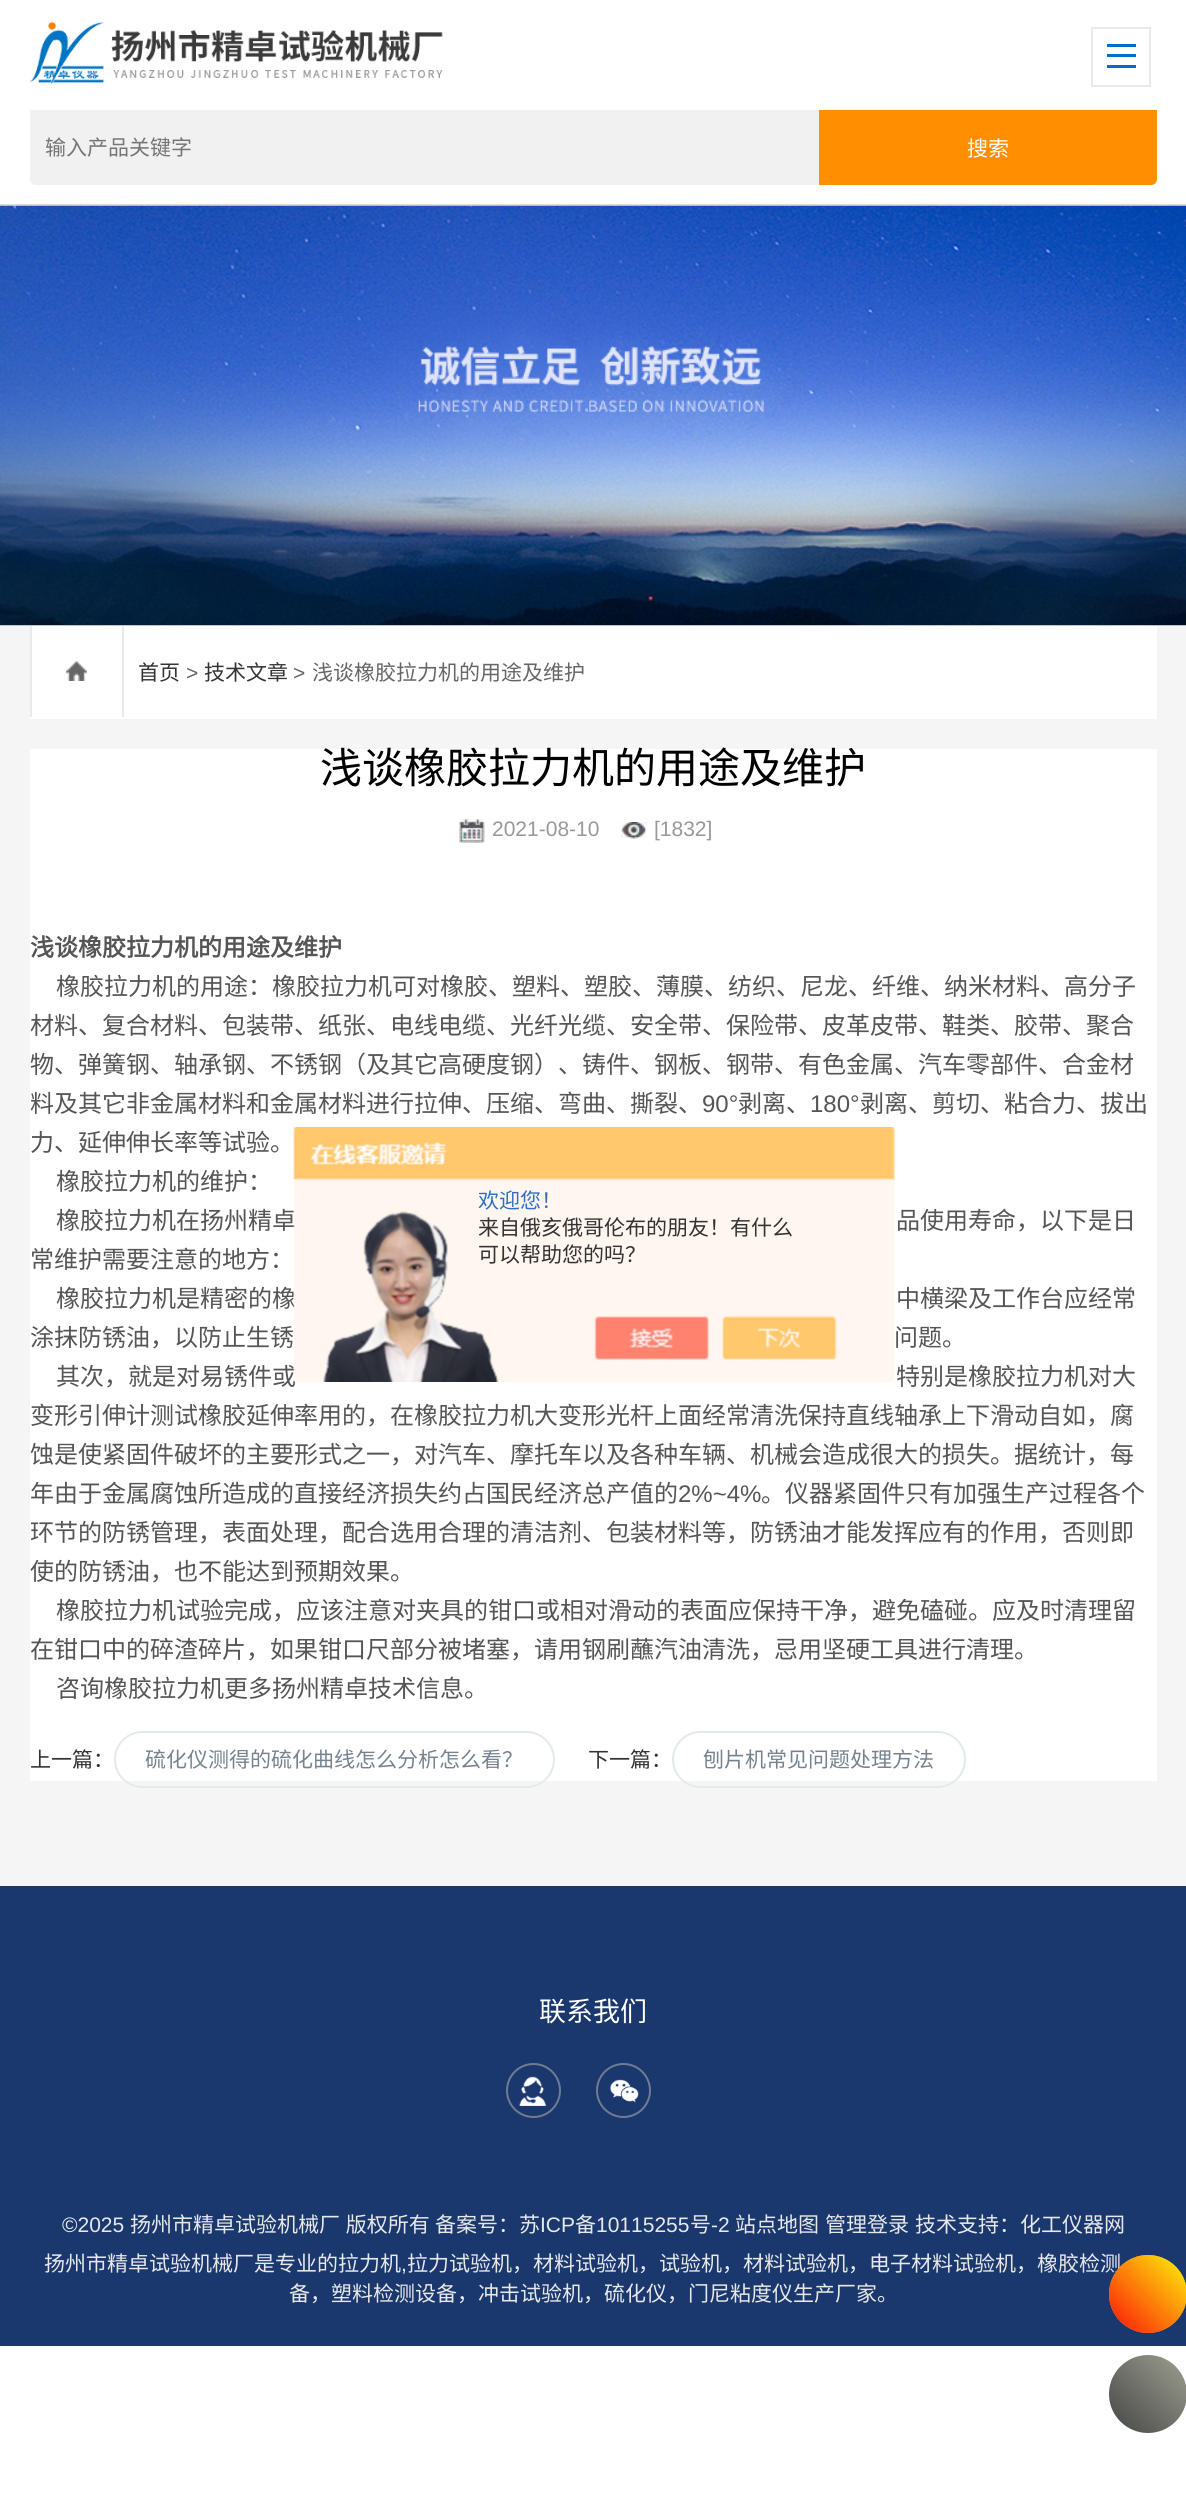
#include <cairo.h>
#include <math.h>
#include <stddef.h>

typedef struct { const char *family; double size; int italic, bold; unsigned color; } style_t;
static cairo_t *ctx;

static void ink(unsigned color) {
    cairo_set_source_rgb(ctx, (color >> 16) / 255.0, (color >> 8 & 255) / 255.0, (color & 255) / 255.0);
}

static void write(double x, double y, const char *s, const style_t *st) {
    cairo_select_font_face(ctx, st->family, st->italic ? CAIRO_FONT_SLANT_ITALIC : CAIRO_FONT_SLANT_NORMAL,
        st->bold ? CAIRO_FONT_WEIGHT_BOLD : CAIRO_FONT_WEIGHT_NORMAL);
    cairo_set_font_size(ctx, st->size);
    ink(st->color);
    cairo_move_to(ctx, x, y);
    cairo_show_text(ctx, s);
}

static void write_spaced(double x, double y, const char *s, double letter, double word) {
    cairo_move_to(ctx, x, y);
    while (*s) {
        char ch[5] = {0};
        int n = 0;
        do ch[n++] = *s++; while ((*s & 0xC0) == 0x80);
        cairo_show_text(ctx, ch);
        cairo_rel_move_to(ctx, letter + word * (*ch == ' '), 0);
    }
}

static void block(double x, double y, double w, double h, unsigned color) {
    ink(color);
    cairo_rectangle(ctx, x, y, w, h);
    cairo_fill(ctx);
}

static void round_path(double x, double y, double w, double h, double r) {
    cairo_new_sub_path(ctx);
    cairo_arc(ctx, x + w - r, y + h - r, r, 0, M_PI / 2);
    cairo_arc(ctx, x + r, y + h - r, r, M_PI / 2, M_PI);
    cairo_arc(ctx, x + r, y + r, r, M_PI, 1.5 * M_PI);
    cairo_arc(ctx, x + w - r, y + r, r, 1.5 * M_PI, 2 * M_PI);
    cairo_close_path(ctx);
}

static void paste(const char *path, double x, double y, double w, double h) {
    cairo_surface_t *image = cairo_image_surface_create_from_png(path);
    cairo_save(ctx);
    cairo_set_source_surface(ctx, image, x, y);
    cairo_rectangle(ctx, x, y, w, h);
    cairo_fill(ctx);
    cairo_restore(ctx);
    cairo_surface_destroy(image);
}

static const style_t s1 = {"Noto Sans CJK SC", 21, 0, 0, 0x757575};
static const style_t s2 = {"Noto Sans CJK SC", 21, 0, 0, 0xffffff};
static const style_t s3 = {"Noto Sans CJK SC", 21, 0, 0, 0x333333};
static const style_t s4 = {"Liberation Sans", 21, 0, 0, 0x666666};
static const style_t s5 = {"Noto Sans CJK SC", 21, 0, 0, 0x666666};
static const style_t s6 = {"Noto Sans CJK SC", 42, 0, 0, 0x000000};
static const style_t s7 = {"Liberation Sans", 21, 0, 0, 0x999999};
static const style_t s8 = {"Noto Sans CJK SC", 24, 0, 1, 0x555555};
static const style_t s9 = {"Noto Sans CJK SC", 24, 0, 0, 0x555555};
static const style_t s10 = {"Liberation Sans", 24, 0, 0, 0x555555};
static const style_t s11 = {"Noto Sans CJK SC", 21, 0, 0, 0x76838f};
static const style_t s12 = {"Noto Sans CJK SC", 21, 0, 0, 0x2e6ec6};
static const style_t s13 = {"Noto Sans CJK SC", 27, 0, 0, 0xffffff};
static const style_t s14 = {"Liberation Sans", 21, 0, 0, 0xe8e8e8};
static const style_t s15 = {"Noto Sans CJK SC", 21, 0, 0, 0xe8e8e8};

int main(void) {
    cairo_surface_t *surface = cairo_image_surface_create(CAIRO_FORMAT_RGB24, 1186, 2508);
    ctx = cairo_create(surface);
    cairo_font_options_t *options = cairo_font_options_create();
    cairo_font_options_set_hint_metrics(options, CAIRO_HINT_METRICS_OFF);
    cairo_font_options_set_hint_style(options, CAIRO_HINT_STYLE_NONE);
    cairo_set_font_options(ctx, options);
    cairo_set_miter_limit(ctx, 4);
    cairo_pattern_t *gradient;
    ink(0xffffff);
    cairo_paint(ctx);
    cairo_rectangle(ctx, 1092, 28, 58, 58);
    ink(0xeaeaea);
    cairo_stroke(ctx);
    block(1107, 44, 29, 3, 0x006ccc);
    block(1107, 54, 29, 3, 0x006ccc);
    block(1107, 65, 29, 3, 0x006ccc);
    block(0, 204, 1186, 2, 0xdedede);
    paste("pic1.png", 30, 21, 413, 63);
    ink(0xf1f1f1);
    cairo_new_path(ctx);
    cairo_move_to(ctx, 30, 110);
    cairo_line_to(ctx, 819, 110);
    cairo_line_to(ctx, 819, 185);
    cairo_line_to(ctx, 36, 185);
    cairo_curve_to(ctx, 32.5, 185, 30, 182.5, 30, 179);
    cairo_close_path(ctx);
    cairo_fill(ctx);
    write(45, 155, "输入产品关键字", &s1);
    ink(0xff8e00);
    cairo_new_path(ctx);
    cairo_move_to(ctx, 819, 110);
    cairo_line_to(ctx, 1157, 110);
    cairo_line_to(ctx, 1157, 179);
    cairo_curve_to(ctx, 1157, 182.5, 1154.5, 185, 1151, 185);
    cairo_line_to(ctx, 819, 185);
    cairo_close_path(ctx);
    cairo_fill(ctx);
    write(967, 156, "搜索", &s2);
    paste("pic2.png", 0, 205, 1186, 421);
    block(0, 626, 1186, 1260, 0xf5f5f5);
    block(30, 626, 1127, 93, 0xffffff);
    paste("pic3.png", 66, 661, 21, 20);
    block(122, 626, 2, 91, 0xeaeaea);
    block(30, 626, 2, 91, 0xeaeaea);
    write(138, 680, "首页", &s3);
    write(186, 680, ">", &s4);
    write(204, 680, "技术文章", &s3);
    write(293, 680, ">", &s4);
    write(312, 680, "浅谈橡胶拉力机的用途及维护", &s5);
    block(30, 749, 1127, 1032, 0xffffff);
    write(320, 783, "浅谈橡胶拉力机的用途及维护", &s6);
    paste("pic4.png", 459, 819, 26, 24);
    write(492, 836, "2021-08-10", &s7);
    paste("pic5.png", 621, 822, 26, 17);
    write(654, 836, "[1832]", &s7);
    write(30, 956, "浅谈橡胶拉力机的用途及维护", &s8);
    write(56, 995, "橡胶拉力机的用途：橡胶拉力机可对橡胶、塑料、塑胶、薄膜、纺织、尼龙、纤维、纳米材料、高分子", &s9);
    write(30, 1034, "材料、复合材料、包装带、纸张、电线电缆、光纤光缆、安全带、保险带、皮革皮带、鞋类、胶带、聚合", &s9);
    write(30, 1073, "物、弹簧钢、轴承钢、不锈钢（及其它高硬度钢）、铸件、钢板、钢带、有色金属、汽车零部件、合金材", &s9);
    write(30, 1112, "料及其它非金属材料和金属材料进行拉伸、压缩、弯曲、撕裂、", &s9);
    write(702, 1112, "90°", &s10);
    write(738, 1112, "剥离、", &s9);
    write(810, 1112, "180°", &s10);
    write(860, 1112, "剥离、剪切、粘合力、拔出", &s9);
    write(30, 1151, "力、延伸伸长率等试验。", &s9);
    write(56, 1190, "橡胶拉力机的维护：", &s9);
    write(56, 1229, "橡胶拉力机在扬州精卓", &s9);
    write(896, 1229, "品使用寿命，以下是日", &s9);
    write(30, 1268, "常维护需要注意的地方：", &s9);
    write(56, 1307, "橡胶拉力机是精密的橡", &s9);
    write(896, 1307, "中横梁及工作台应经常", &s9);
    write(30, 1346, "涂抹防锈油，以防止生锈", &s9);
    write(894, 1346, "问题。", &s9);
    write(56, 1385, "其次，就是对易锈件或", &s9);
    write(896, 1385, "特别是橡胶拉力机对大", &s9);
    write(30, 1424, "变形引伸计测试橡胶延伸率用的，在橡胶拉力机大变形光杆上面经常清洗保持直线轴承上下滑动自如，腐", &s9);
    write(30, 1463, "蚀是使紧固件破坏的主要形式之一，对汽车、摩托车以及各种车辆、机械会造成很大的损失。据统计，每", &s9);
    write(30, 1502, "年由于金属腐蚀所造成的直接经济损失约占国民经济总产值的", &s9);
    write(678, 1502, "2%~4%", &s10);
    write(761, 1502, "。仪器紧固件只有加强生产过程各个", &s9);
    write(30, 1541, "环节的防锈管理，表面处理，配合选用合理的清洁剂、包装材料等，防锈油才能发挥应有的作用，否则即", &s9);
    write(30, 1580, "使的防锈油，也不能达到预期效果。", &s9);
    write(56, 1619, "橡胶拉力机试验完成，应该注意对夹具的钳口或相对滑动的表面应保持干净，避免磕碰。应及时清理留", &s9);
    write(30, 1658, "在钳口中的碎渣碎片，如果钳口尺部分被堵塞，请用钢刷蘸汽油清洗，忌用坚硬工具进行清理。", &s9);
    write(56, 1697, "咨询橡胶拉力机更多扬州精卓技术信息。", &s9);
    write(30, 1767, "上一篇：", &s3);
    round_path(115, 1732, 439, 55, 27.5);
    ink(0xe4eaec);
    cairo_stroke(ctx);
    write(145, 1767, "硫化仪测得的硫化曲线怎么分析怎么看？", &s11);
    write(588, 1767, "下一篇：", &s3);
    round_path(673, 1732, 292, 55, 27.5);
    ink(0xe4eaec);
    cairo_stroke(ctx);
    write(703, 1767, "刨片机常见问题处理方法", &s11);
    paste("pic6.png", 293, 1127, 602, 255);
    write(478, 1208, "欢迎您！", &s12);
    write(478, 1235, "来自俄亥俄哥伦布的朋友！有什么", &s3);
    write(478, 1262, "可以帮助您的吗？", &s3);
    block(0, 1886, 1186, 460, 0x1a386e);
    write(539, 2021, "联系我们", &s13);
    cairo_new_path(ctx);
    cairo_arc(ctx, 533.5, 2090.5, 26.5, 0, 2 * M_PI);
    ink(0x6f7b92);
    cairo_stroke(ctx);
    paste("pic7.png", 519, 2076, 28, 30);
    cairo_arc(ctx, 623.5, 2090.5, 26.5, 0, 2 * M_PI);
    cairo_stroke(ctx);
    paste("pic8.png", 610, 2079, 29, 24);
    write(62, 2232, "©2025", &s14);
    cairo_select_font_face(ctx, "Noto Sans CJK SC", CAIRO_FONT_SLANT_NORMAL, CAIRO_FONT_WEIGHT_NORMAL);
    write_spaced(130, 2232, "扬州市精卓试验机械厂 版权所有", 0, 1);
    write(435, 2232, "备案号：苏", &s15);
    write(540, 2232, "ICP", &s14);
    write(575, 2232, "备", &s15);
    write(596, 2232, "10115255", &s14);
    write(690, 2232, "号", &s15);
    write(711, 2232, "-2", &s14);
    write(735, 2232, "站点地图", &s15);
    write(825, 2232, "管理登录", &s15);
    write(915, 2232, "技术支持：化工仪器网", &s15);
    write(44, 2271, "扬州市精卓试验机械厂是专业的拉力机", &s15);
    write(401, 2271, ",", &s14);
    write(407, 2271, "拉力试验机，材料试验机，试验机，材料试验机，电子材料试验机，橡胶检测", &s15);
    write(289, 2301, "备，塑料检测设备，冲击试验机，硫化仪，门尼粘度仪生产厂家。", &s15);
    cairo_set_source_rgba(ctx, 0.996, 0.714, 0.357, 0.9);
    cairo_new_path(ctx);
    cairo_arc(ctx, 1148, 2294, 39, 0, 2 * M_PI);
    cairo_fill(ctx);
    gradient = cairo_pattern_create_linear(1109, 2333, 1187, 2255);
    cairo_pattern_add_color_stop_rgba(gradient, 0, 1, 0, 0, 0.9);
    cairo_pattern_add_color_stop_rgba(gradient, 1, 1, 1, 0, 0.9);
    cairo_set_source(ctx, gradient);
    cairo_pattern_destroy(gradient);
    cairo_arc(ctx, 1148, 2294, 39, 0, 2 * M_PI);
    cairo_fill(ctx);
    gradient = cairo_pattern_create_linear(1109, 2433, 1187, 2355);
    cairo_pattern_add_color_stop_rgba(gradient, 0, 0.267, 0.275, 0.271, 1);
    cairo_pattern_add_color_stop_rgba(gradient, 1, 0.624, 0.624, 0.569, 1);
    cairo_set_source(ctx, gradient);
    cairo_pattern_destroy(gradient);
    cairo_arc(ctx, 1148, 2394, 39, 0, 2 * M_PI);
    cairo_fill(ctx);
    cairo_surface_write_to_png(surface, "screenshot.png");
    cairo_font_options_destroy(options);
    cairo_destroy(ctx);
    cairo_surface_destroy(surface);
    return 0;
}
